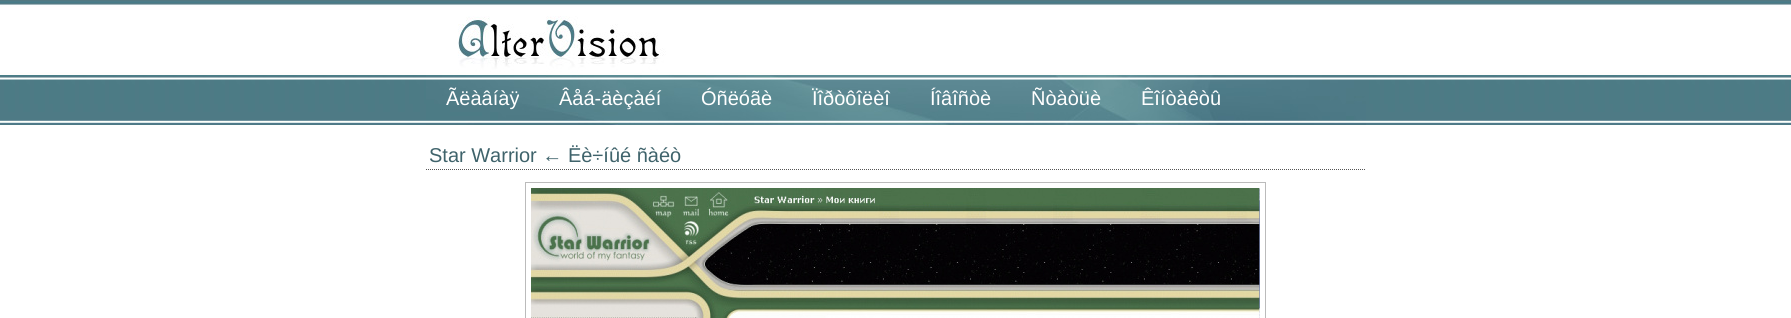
#include <cairo.h>
#include <math.h>
#include <stddef.h>

typedef struct { const char *family; double size; int italic, bold; unsigned color; } style_t;
static cairo_t *ctx;

static void ink(unsigned color) {
    cairo_set_source_rgb(ctx, (color >> 16) / 255.0, (color >> 8 & 255) / 255.0, (color & 255) / 255.0);
}

static void write(double x, double y, const char *s, const style_t *st) {
    cairo_select_font_face(ctx, st->family, st->italic ? CAIRO_FONT_SLANT_ITALIC : CAIRO_FONT_SLANT_NORMAL,
        st->bold ? CAIRO_FONT_WEIGHT_BOLD : CAIRO_FONT_WEIGHT_NORMAL);
    cairo_set_font_size(ctx, st->size);
    ink(st->color);
    cairo_move_to(ctx, x, y);
    cairo_show_text(ctx, s);
}

static void block(double x, double y, double w, double h, unsigned color) {
    ink(color);
    cairo_rectangle(ctx, x, y, w, h);
    cairo_fill(ctx);
}

static void paste(const char *path, double x, double y, double w, double h) {
    cairo_surface_t *image = cairo_image_surface_create_from_png(path);
    cairo_save(ctx);
    cairo_set_source_surface(ctx, image, x, y);
    cairo_rectangle(ctx, x, y, w, h);
    cairo_fill(ctx);
    cairo_restore(ctx);
    cairo_surface_destroy(image);
}

static const style_t s1 = {"Liberation Sans", 20, 0, 0, 0xffffff};
static const style_t s2 = {"Liberation Sans", 20, 0, 0, 0x3f636b};

int main(void) {
    cairo_surface_t *surface = cairo_image_surface_create(CAIRO_FORMAT_RGB24, 1791, 318);
    ctx = cairo_create(surface);
    cairo_font_options_t *options = cairo_font_options_create();
    cairo_font_options_set_hint_metrics(options, CAIRO_HINT_METRICS_OFF);
    cairo_font_options_set_hint_style(options, CAIRO_HINT_STYLE_NONE);
    cairo_set_font_options(ctx, options);
    cairo_set_miter_limit(ctx, 4);
    ink(0xffffff);
    cairo_paint(ctx);
    block(0, 124, 1791, 1, 0x4e7b86);
    paste("pic1.png", 0, 0, 1791, 124);
    paste("pic2.png", 426, 0, 940, 125);
    write(446, 105, "Ãëàâíàÿ", &s1);
    write(559, 105, "Âåá-äèçàéí", &s1);
    write(701, 105, "Óñëóãè", &s1);
    write(812, 105, "Ïîðòôîëèî", &s1);
    write(930, 105, "Íîâîñòè", &s1);
    write(1031, 105, "Ñòàòüè", &s1);
    write(1141, 105, "Êîíòàêòû", &s1);
    cairo_new_path(ctx);
    cairo_move_to(ctx, 426, 169.5);
    cairo_line_to(ctx, 1366, 169.5);
    ink(0x555555);
    cairo_set_line_width(ctx, 1);
    cairo_set_dash(ctx, (double[]){1, 1}, 2, 0);
    cairo_stroke(ctx);
    write(429, 162, "Star Warrior ← Ëè÷íûé ñàéò", &s2);
    cairo_rectangle(ctx, 525.5, 182.5, 740, 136);
    ink(0xbbbbbb);
    cairo_set_dash(ctx, NULL, 0, 0);
    cairo_stroke(ctx);
    paste("pic3.png", 531, 188, 729, 130);
    cairo_surface_write_to_png(surface, "screenshot.png");
    cairo_font_options_destroy(options);
    cairo_destroy(ctx);
    cairo_surface_destroy(surface);
    return 0;
}
